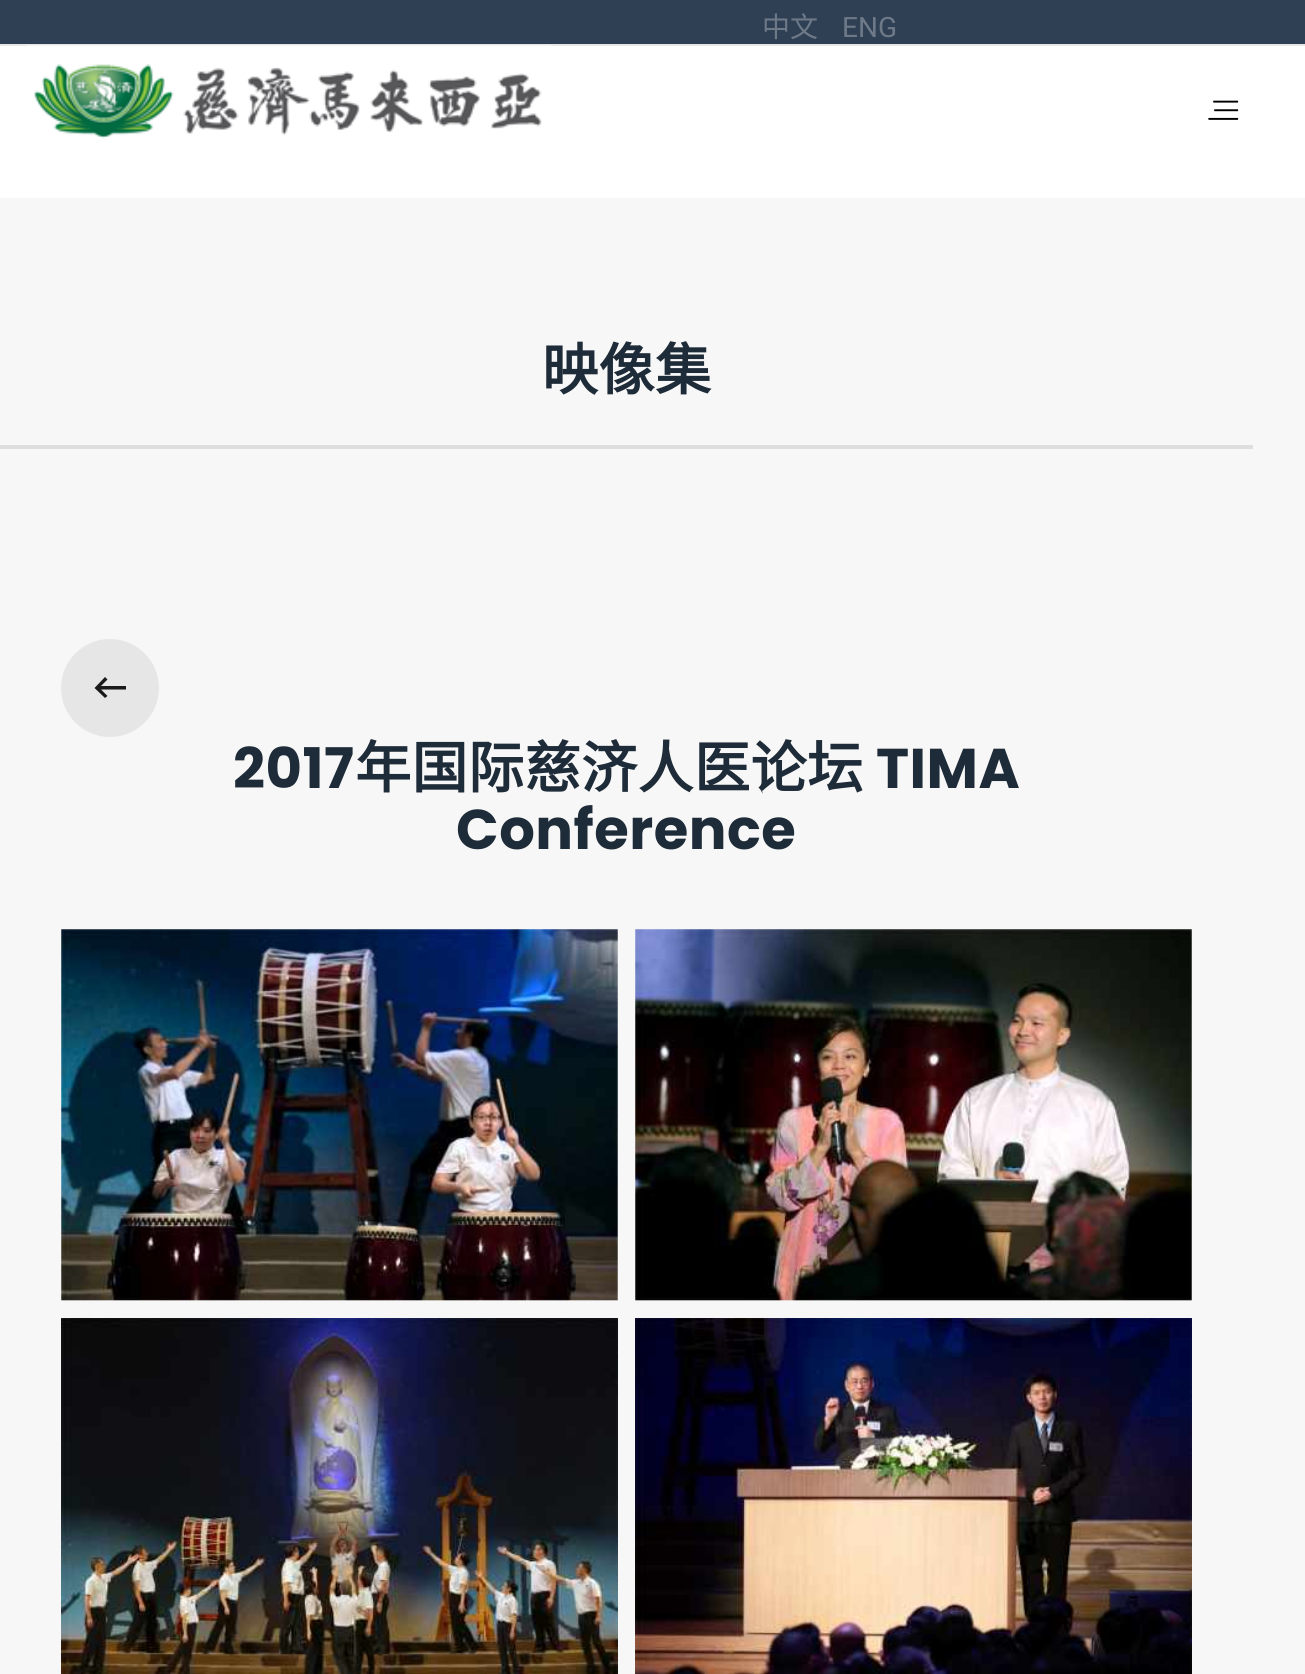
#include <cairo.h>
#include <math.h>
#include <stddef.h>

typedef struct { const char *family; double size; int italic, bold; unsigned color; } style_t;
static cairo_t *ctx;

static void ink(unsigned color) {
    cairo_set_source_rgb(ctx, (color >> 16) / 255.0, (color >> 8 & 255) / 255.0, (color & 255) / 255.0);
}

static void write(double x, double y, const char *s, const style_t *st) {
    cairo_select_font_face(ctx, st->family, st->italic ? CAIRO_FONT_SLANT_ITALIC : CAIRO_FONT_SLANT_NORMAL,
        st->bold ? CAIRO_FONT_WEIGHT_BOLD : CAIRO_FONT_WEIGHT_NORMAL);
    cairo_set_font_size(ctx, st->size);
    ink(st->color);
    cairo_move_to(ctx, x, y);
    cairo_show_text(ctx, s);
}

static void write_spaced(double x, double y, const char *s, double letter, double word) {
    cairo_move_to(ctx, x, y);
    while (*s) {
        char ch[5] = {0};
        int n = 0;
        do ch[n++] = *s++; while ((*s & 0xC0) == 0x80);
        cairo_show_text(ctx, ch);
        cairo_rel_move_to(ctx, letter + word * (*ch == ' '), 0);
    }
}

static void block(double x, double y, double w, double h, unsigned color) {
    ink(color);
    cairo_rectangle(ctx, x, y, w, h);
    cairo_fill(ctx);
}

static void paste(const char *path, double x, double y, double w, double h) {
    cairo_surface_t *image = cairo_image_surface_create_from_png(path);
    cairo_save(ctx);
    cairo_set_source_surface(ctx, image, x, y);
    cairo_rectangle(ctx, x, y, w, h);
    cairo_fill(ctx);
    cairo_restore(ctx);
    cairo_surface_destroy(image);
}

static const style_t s1 = {"Noto Sans CJK SC", 28, 0, 0, 0x6e7988};
static const style_t s2 = {"Roboto", 28, 0, 0, 0x6e7988};

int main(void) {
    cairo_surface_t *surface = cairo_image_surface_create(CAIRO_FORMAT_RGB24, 1305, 1674);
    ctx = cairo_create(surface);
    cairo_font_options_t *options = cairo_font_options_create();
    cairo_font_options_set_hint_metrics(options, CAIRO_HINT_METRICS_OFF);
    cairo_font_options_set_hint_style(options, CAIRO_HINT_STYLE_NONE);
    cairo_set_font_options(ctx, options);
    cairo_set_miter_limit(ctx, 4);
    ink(0xf7f7f7);
    cairo_paint(ctx);
    block(0, 0, 1305, 44, 0x2f3f54);
    block(0, 44, 1305, 2, 0xe7e7e7);
    write(762, 37, "中文", &s1);
    write(842, 37, "ENG", &s2);
    block(0, 46, 1305, 152, 0xffffff);
    paste("pic1.png", 26, 45, 525, 94);
    paste("pic2.png", 1208, 100, 31, 20);
    cairo_select_font_face(ctx, "Noto Sans CJK SC", CAIRO_FONT_SLANT_NORMAL, CAIRO_FONT_WEIGHT_BOLD);
    cairo_set_font_size(ctx, 56);
    ink(0x1e2b38);
    write_spaced(542, 390, "映像集", 0.5, 0);
    block(0, 445, 1253, 4, 0xdedede);
    ink(0xe6e6e6);
    cairo_new_path(ctx);
    cairo_arc(ctx, 110, 688, 49, 0, 2 * M_PI);
    cairo_fill(ctx);
    ink(0x1a1a1a);
    cairo_new_path(ctx);
    cairo_move_to(ctx, 126, 686);
    cairo_line_to(ctx, 126, 689.5);
    cairo_line_to(ctx, 101, 689.5);
    cairo_line_to(ctx, 107.5, 696);
    cairo_line_to(ctx, 105, 698);
    cairo_line_to(ctx, 94.5, 688);
    cairo_line_to(ctx, 105, 677);
    cairo_line_to(ctx, 107.5, 679.5);
    cairo_line_to(ctx, 101, 686);
    cairo_close_path(ctx);
    cairo_fill(ctx);
    cairo_select_font_face(ctx, "Poppins", CAIRO_FONT_SLANT_NORMAL, CAIRO_FONT_WEIGHT_BOLD);
    ink(0x1e2b38);
    write_spaced(233, 788, "2017", 0.5, 0);
    cairo_select_font_face(ctx, "Noto Sans CJK SC", CAIRO_FONT_SLANT_NORMAL, CAIRO_FONT_WEIGHT_BOLD);
    write_spaced(355, 788, "年国际慈济人医论坛", 0.5, 0);
    cairo_select_font_face(ctx, "Poppins", CAIRO_FONT_SLANT_NORMAL, CAIRO_FONT_WEIGHT_BOLD);
    write_spaced(876, 788, "TIMA", 0.5, 0);
    write_spaced(456, 849, "Conference", 0.5, 0);
    paste("pic3.png", 61, 929, 557, 372);
    paste("pic4.png", 635, 929, 557, 372);
    paste("pic5.png", 61, 1318, 557, 356);
    paste("pic6.png", 635, 1318, 557, 356);
    cairo_surface_write_to_png(surface, "screenshot.png");
    cairo_font_options_destroy(options);
    cairo_destroy(ctx);
    cairo_surface_destroy(surface);
    return 0;
}
